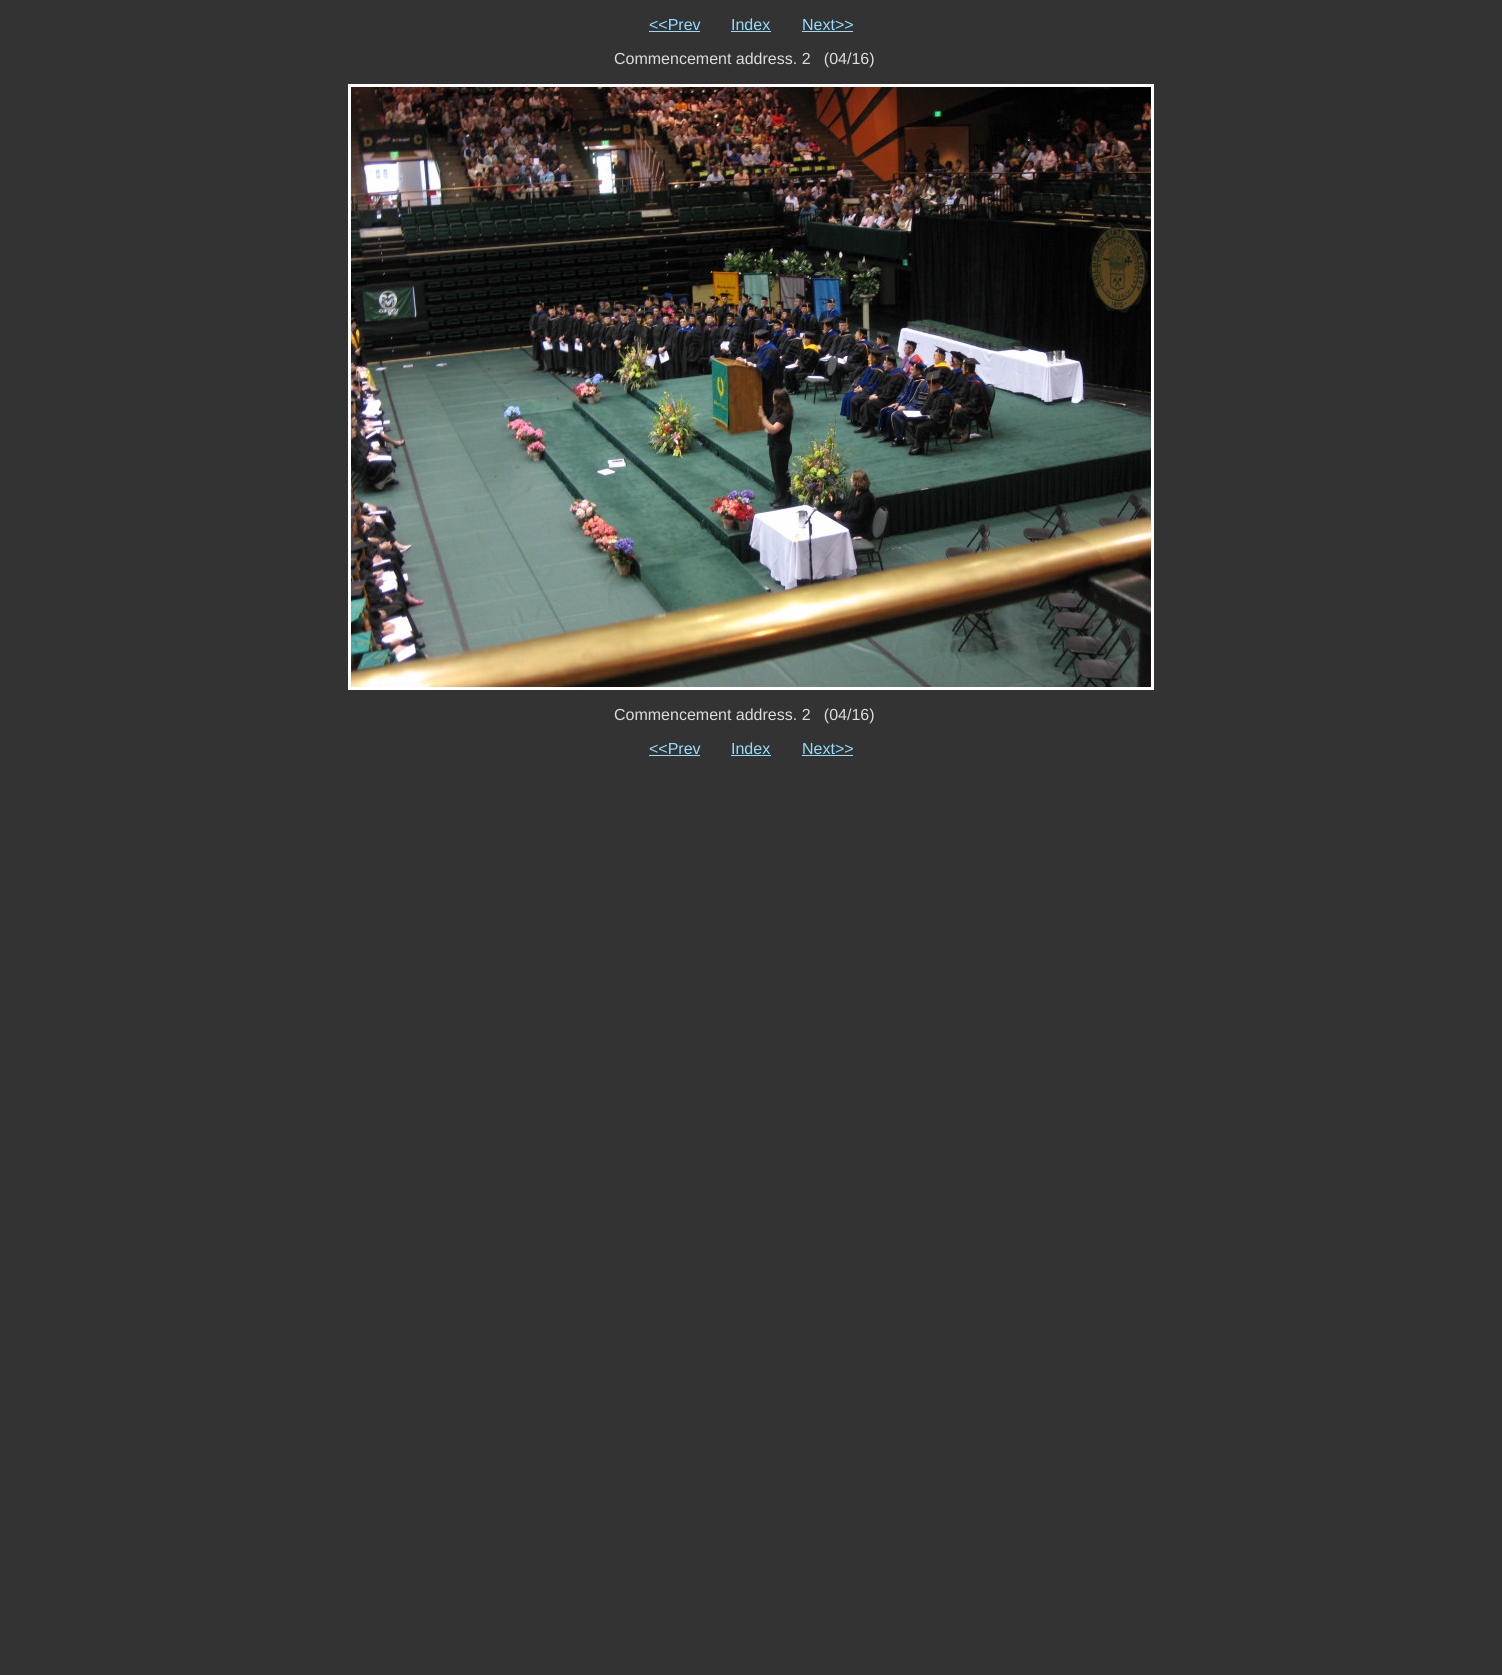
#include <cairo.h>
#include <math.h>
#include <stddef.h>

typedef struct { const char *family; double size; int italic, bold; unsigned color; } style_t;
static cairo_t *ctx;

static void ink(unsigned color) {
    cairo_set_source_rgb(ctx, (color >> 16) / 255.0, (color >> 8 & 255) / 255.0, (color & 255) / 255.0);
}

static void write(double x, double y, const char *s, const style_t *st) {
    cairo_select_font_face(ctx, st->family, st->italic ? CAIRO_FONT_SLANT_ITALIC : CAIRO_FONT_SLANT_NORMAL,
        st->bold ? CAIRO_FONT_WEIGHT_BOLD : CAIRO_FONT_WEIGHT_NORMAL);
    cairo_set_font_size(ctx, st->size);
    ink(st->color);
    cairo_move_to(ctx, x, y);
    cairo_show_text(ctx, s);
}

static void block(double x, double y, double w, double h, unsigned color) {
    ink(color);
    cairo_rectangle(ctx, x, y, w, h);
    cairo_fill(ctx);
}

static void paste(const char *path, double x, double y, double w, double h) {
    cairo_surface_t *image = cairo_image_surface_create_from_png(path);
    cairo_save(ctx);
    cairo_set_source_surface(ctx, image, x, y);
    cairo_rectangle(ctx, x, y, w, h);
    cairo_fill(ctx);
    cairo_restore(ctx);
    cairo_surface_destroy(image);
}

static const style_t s1 = {"Liberation Sans", 16, 0, 0, 0x95ddff};
static const style_t s2 = {"Liberation Sans", 16, 0, 0, 0xdddddd};

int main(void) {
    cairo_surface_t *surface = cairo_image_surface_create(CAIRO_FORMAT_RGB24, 1502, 1675);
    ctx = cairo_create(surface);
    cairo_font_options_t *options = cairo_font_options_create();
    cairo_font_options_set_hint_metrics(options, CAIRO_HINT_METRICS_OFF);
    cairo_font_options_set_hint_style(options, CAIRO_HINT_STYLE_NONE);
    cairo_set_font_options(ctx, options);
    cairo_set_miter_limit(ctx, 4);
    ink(0x333333);
    cairo_paint(ctx);
    write(649, 30, "<<Prev", &s1);
    block(649, 31, 51, 1, 0x95ddff);
    write(731, 30, "Index", &s1);
    block(731, 31, 40, 1, 0x95ddff);
    write(802, 30, "Next>>", &s1);
    block(802, 31, 51, 1, 0x95ddff);
    write(614, 64, "Commencement address. 2   (04/16)", &s2);
    cairo_rectangle(ctx, 349.5, 85.5, 803, 603);
    ink(0xffffff);
    cairo_set_line_width(ctx, 3);
    cairo_stroke(ctx);
    paste("pic1.png", 351, 87, 800, 600);
    write(614, 720, "Commencement address. 2   (04/16)", &s2);
    write(649, 754, "<<Prev", &s1);
    block(649, 755, 51, 1, 0x95ddff);
    write(731, 754, "Index", &s1);
    block(731, 755, 40, 1, 0x95ddff);
    write(802, 754, "Next>>", &s1);
    block(802, 755, 51, 1, 0x95ddff);
    cairo_surface_write_to_png(surface, "screenshot.png");
    cairo_font_options_destroy(options);
    cairo_destroy(ctx);
    cairo_surface_destroy(surface);
    return 0;
}
